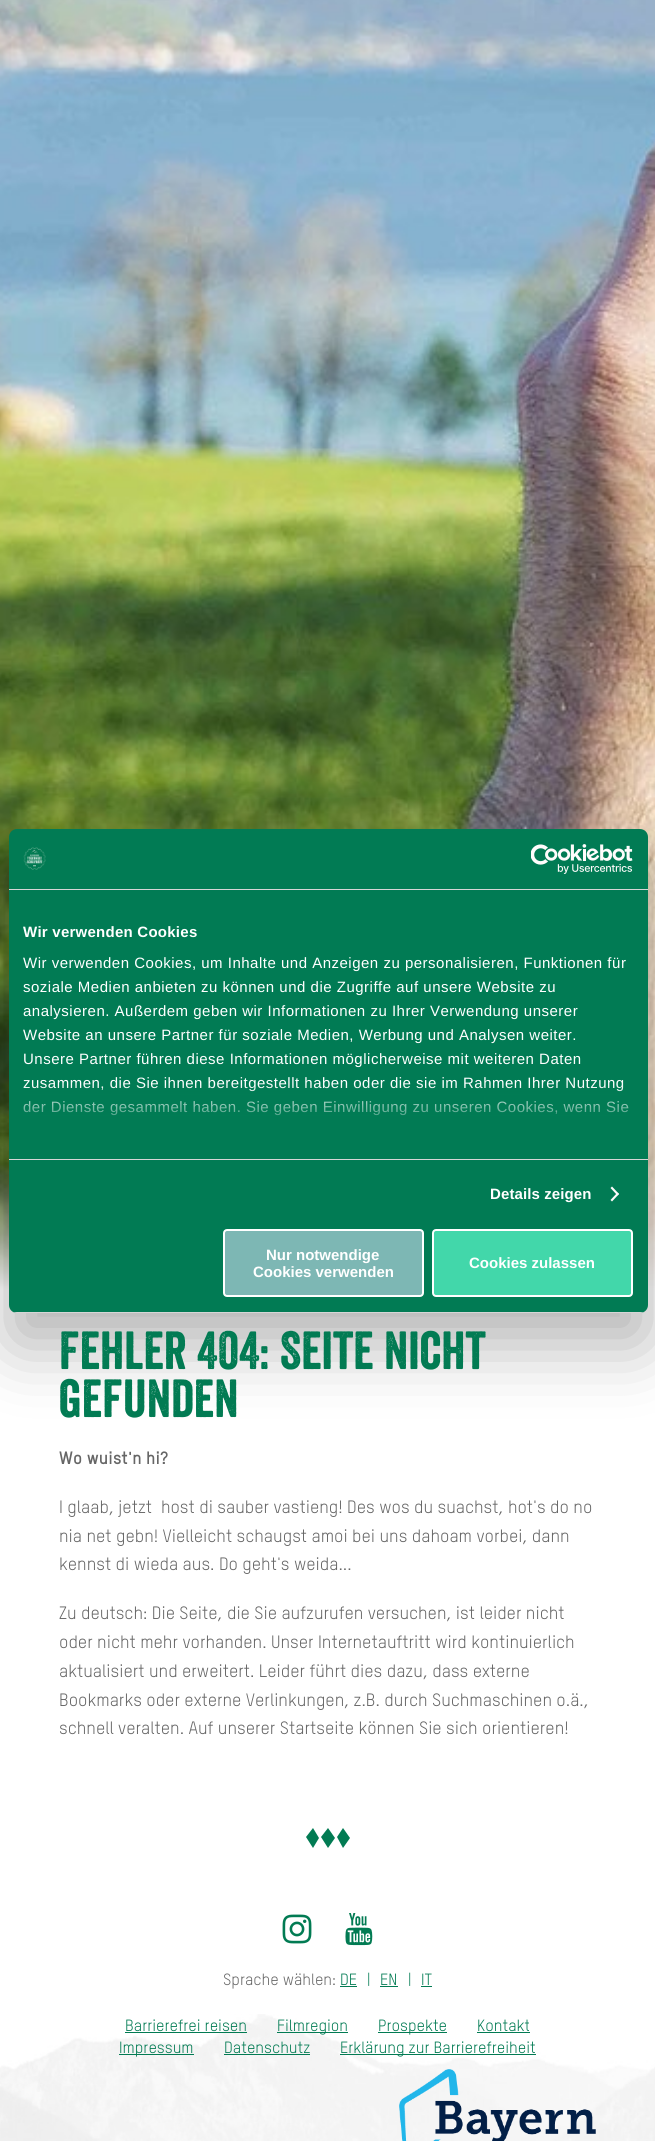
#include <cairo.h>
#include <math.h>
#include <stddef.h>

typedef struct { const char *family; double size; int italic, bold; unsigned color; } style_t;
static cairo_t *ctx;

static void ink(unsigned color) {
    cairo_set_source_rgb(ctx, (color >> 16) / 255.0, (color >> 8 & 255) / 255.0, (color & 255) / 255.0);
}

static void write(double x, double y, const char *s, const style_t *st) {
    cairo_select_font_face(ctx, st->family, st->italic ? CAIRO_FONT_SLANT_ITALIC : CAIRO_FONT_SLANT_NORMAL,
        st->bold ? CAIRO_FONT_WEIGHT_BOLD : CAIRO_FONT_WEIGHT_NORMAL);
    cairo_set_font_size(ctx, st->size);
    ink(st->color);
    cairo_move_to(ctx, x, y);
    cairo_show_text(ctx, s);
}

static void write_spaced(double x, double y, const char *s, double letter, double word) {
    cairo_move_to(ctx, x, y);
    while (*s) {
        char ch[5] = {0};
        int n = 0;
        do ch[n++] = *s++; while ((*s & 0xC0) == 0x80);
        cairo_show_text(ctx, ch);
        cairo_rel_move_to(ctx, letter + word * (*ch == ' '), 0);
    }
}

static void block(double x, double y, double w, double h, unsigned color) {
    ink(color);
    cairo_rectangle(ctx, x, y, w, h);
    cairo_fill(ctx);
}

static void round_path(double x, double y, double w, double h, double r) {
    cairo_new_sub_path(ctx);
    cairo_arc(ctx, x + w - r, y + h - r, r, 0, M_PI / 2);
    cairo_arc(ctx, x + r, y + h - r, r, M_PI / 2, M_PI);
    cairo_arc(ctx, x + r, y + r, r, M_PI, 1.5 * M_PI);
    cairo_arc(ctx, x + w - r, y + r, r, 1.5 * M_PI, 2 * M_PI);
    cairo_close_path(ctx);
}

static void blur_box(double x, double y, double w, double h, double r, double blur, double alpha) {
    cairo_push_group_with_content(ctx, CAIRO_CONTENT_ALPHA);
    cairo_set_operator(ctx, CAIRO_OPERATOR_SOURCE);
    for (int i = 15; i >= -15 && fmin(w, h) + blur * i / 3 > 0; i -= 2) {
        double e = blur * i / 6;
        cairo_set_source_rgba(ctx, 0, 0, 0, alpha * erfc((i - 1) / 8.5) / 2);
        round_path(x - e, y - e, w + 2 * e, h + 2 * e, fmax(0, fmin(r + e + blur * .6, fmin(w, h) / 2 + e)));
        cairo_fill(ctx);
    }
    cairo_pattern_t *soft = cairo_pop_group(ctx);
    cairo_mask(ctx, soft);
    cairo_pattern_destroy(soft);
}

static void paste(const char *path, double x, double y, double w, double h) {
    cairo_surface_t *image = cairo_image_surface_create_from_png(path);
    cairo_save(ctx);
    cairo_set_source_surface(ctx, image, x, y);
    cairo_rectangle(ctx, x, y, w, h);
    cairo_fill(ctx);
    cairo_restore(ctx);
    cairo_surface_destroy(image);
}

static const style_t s1 = {"Liberation Sans", 15, 0, 1, 0xffffff};
static const style_t s2 = {"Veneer", 52, 0, 0, 0x027b53};
static const style_t s3 = {"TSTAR", 17.6, 0, 1, 0x666666};
static const style_t s4 = {"TSTAR", 17.6, 0, 0, 0x666666};
static const style_t s5 = {"TSTAR", 16, 0, 0, 0x666666};
static const style_t s6 = {"TSTAR", 16, 0, 0, 0x027b53};

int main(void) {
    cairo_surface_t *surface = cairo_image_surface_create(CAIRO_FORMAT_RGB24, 655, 2141);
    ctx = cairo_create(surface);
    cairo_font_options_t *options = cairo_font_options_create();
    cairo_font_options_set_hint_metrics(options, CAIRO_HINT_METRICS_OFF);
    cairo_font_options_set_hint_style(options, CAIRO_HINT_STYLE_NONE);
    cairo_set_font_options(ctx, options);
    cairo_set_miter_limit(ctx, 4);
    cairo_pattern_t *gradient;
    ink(0xffffff);
    cairo_paint(ctx);
    paste("pic1.png", 0, 0, 655, 1289);
    ink(0x000000);
    blur_box(9, 861, 639, 484, 8, 34, 0.3);
    ink(0x017b54);
    round_path(9, 829, 639, 484, 8);
    cairo_fill(ctx);
    block(9, 889, 639, 1, 0xd6d6d6);
    paste("pic2.png", 23, 847, 23, 23);
    paste("pic3.png", 531, 844, 102, 30);
    block(9, 1159, 639, 1, 0xd6d6d6);
    cairo_select_font_face(ctx, "Liberation Sans", CAIRO_FONT_SLANT_NORMAL, CAIRO_FONT_WEIGHT_BOLD);
    cairo_set_font_size(ctx, 15);
    ink(0xffffff);
    write_spaced(23, 937, "Wir verwenden Cookies", 0.25, 0);
    cairo_select_font_face(ctx, "Liberation Sans", CAIRO_FONT_SLANT_NORMAL, CAIRO_FONT_WEIGHT_NORMAL);
    write_spaced(23, 968, "Wir verwenden Cookies, um Inhalte und Anzeigen zu personalisieren, Funktionen für", 0.5, 0);
    write_spaced(23, 992, "soziale Medien anbieten zu können und die Zugriffe auf unsere Website zu", 0.5, 0);
    write_spaced(23, 1016, "analysieren. Außerdem geben wir Informationen zu Ihrer Verwendung unserer", 0.5, 0);
    write_spaced(23, 1040, "Website an unsere Partner für soziale Medien, Werbung und Analysen weiter.", 0.5, 0);
    write_spaced(23, 1064, "Unsere Partner führen diese Informationen möglicherweise mit weiteren Daten", 0.5, 0);
    write_spaced(23, 1088, "zusammen, die Sie ihnen bereitgestellt haben oder die sie im Rahmen Ihrer Nutzung", 0.5, 0);
    write_spaced(23, 1112, "der Dienste gesammelt haben. Sie geben Einwilligung zu unseren Cookies, wenn Sie", 0.5, 0);
    gradient = cairo_pattern_create_linear(322, 1159, 322, 1084);
    cairo_pattern_add_color_stop_rgba(gradient, 0, 0.004, 0.482, 0.329, 1);
    cairo_pattern_add_color_stop_rgba(gradient, 0.5, 0.004, 0.482, 0.329, 0.8);
    cairo_pattern_add_color_stop_rgba(gradient, 1, 0.004, 0.482, 0.329, 0);
    cairo_set_source(ctx, gradient);
    cairo_pattern_destroy(gradient);
    cairo_rectangle(ctx, 23, 1085, 605, 31);
    cairo_fill(ctx);
    cairo_select_font_face(ctx, "Liberation Sans", CAIRO_FONT_SLANT_NORMAL, CAIRO_FONT_WEIGHT_BOLD);
    ink(0xffffff);
    write_spaced(490, 1199, "Details zeigen", 0.1, 0);
    ink(0xfffcfc);
    cairo_new_path(ctx);
    cairo_move_to(ctx, 612, 1186.5);
    cairo_line_to(ctx, 619, 1194);
    cairo_line_to(ctx, 617.5, 1195.5);
    cairo_line_to(ctx, 610.5, 1188);
    cairo_close_path(ctx);
    cairo_fill(ctx);
    cairo_new_path(ctx);
    cairo_move_to(ctx, 617.5, 1192.5);
    cairo_line_to(ctx, 619, 1194);
    cairo_line_to(ctx, 612, 1201.5);
    cairo_line_to(ctx, 610.5, 1200);
    cairo_close_path(ctx);
    cairo_fill(ctx);
    cairo_save(ctx);
    round_path(9, 829, 639, 484, 8);
    cairo_clip(ctx);
    block(9, 1312, 639, 1, 0xd6d6d6);
    cairo_restore(ctx);
    ink(0x7db7b4);
    round_path(224, 1230, 199, 66, 3);
    cairo_fill_preserve(ctx);
    ink(0xffffff);
    cairo_stroke(ctx);
    write(266, 1260, "Nur notwendige", &s1);
    write(253, 1277, "Cookies verwenden", &s1);
    ink(0x42d7aa);
    round_path(433, 1230, 199, 66, 3);
    cairo_fill_preserve(ctx);
    ink(0xffffff);
    cairo_stroke(ctx);
    write(469, 1268, "Cookies zulassen", &s1);
    write(59, 1369, "Fehler 404: Seite nicht", &s2);
    write(59, 1417, "gefunden", &s2);
    write(59, 1464, "Wo wuist'n hi?", &s3);
    write(59, 1513, "I glaab, jetzt  host di sauber vastieng! Des wos du suachst, hot's do no", &s4);
    write(59, 1542, "nia net gebn! Vielleicht schaugst amoi bei uns dahoam vorbei, dann", &s4);
    write(59, 1570, "kennst di wieda aus. Do geht's weida...", &s4);
    write(59, 1619, "Zu deutsch: Die Seite, die Sie aufzurufen versuchen, ist leider nicht", &s4);
    write(59, 1648, "oder nicht mehr vorhanden. Unser Internetauftritt wird kontinuierlich", &s4);
    write(59, 1677, "aktualisiert und erweitert. Leider führt dies dazu, dass externe", &s4);
    write(59, 1706, "Bookmarks oder externe Verlinkungen, z.B. durch Suchmaschinen o.ä.,", &s4);
    write(59, 1734, "schnell veralten. Auf unserer Startseite können Sie sich orientieren!", &s4);
    ink(0x027b53);
    cairo_new_path(ctx);
    cairo_move_to(ctx, 313, 1828);
    cairo_line_to(ctx, 319, 1838);
    cairo_line_to(ctx, 313, 1848);
    cairo_line_to(ctx, 306, 1837);
    cairo_close_path(ctx);
    cairo_move_to(ctx, 328, 1828);
    cairo_line_to(ctx, 335, 1838);
    cairo_line_to(ctx, 328, 1848);
    cairo_line_to(ctx, 321, 1837);
    cairo_close_path(ctx);
    cairo_move_to(ctx, 343, 1828);
    cairo_line_to(ctx, 350, 1838);
    cairo_line_to(ctx, 343, 1848);
    cairo_line_to(ctx, 337, 1837);
    cairo_close_path(ctx);
    cairo_fill(ctx);
    paste("pic4.png", 0, 2014, 655, 127);
    paste("pic5.png", 282, 1914, 30, 30);
    paste("pic6.png", 345, 1913, 28, 33);
    write(223, 1985, "Sprache wählen:", &s5);
    write(340, 1985, "DE", &s6);
    block(340, 1986, 17, 1, 0x027b53);
    write(367, 1985, "|", &s6);
    write(380, 1985, "EN", &s6);
    block(380, 1986, 18, 1, 0x027b53);
    write(408, 1985, "|", &s6);
    write(421, 1985, "IT", &s6);
    block(421, 1986, 11, 1, 0x027b53);
    write(125, 2031, "Barrierefrei reisen", &s6);
    block(125, 2032, 122, 1, 0x027b53);
    block(277, 2032, 71, 1, 0x027b53);
    write(277, 2031, "Filmregion", &s6);
    block(378, 2032, 69, 1, 0x027b53);
    write(378, 2031, "Prospekte", &s6);
    write(477, 2031, "Kontakt", &s6);
    block(477, 2032, 53, 1, 0x027b53);
    block(119, 2054, 75, 1, 0x027b53);
    write(119, 2053, "Impressum", &s6);
    write(224, 2053, "Datenschutz", &s6);
    block(224, 2054, 86, 1, 0x027b53);
    block(340, 2054, 196, 1, 0x027b53);
    write(340, 2053, "Erklärung zur Barrierefreiheit", &s6);
    paste("pic7.png", 399, 2069, 197, 72);
    cairo_surface_write_to_png(surface, "screenshot.png");
    cairo_font_options_destroy(options);
    cairo_destroy(ctx);
    cairo_surface_destroy(surface);
    return 0;
}
